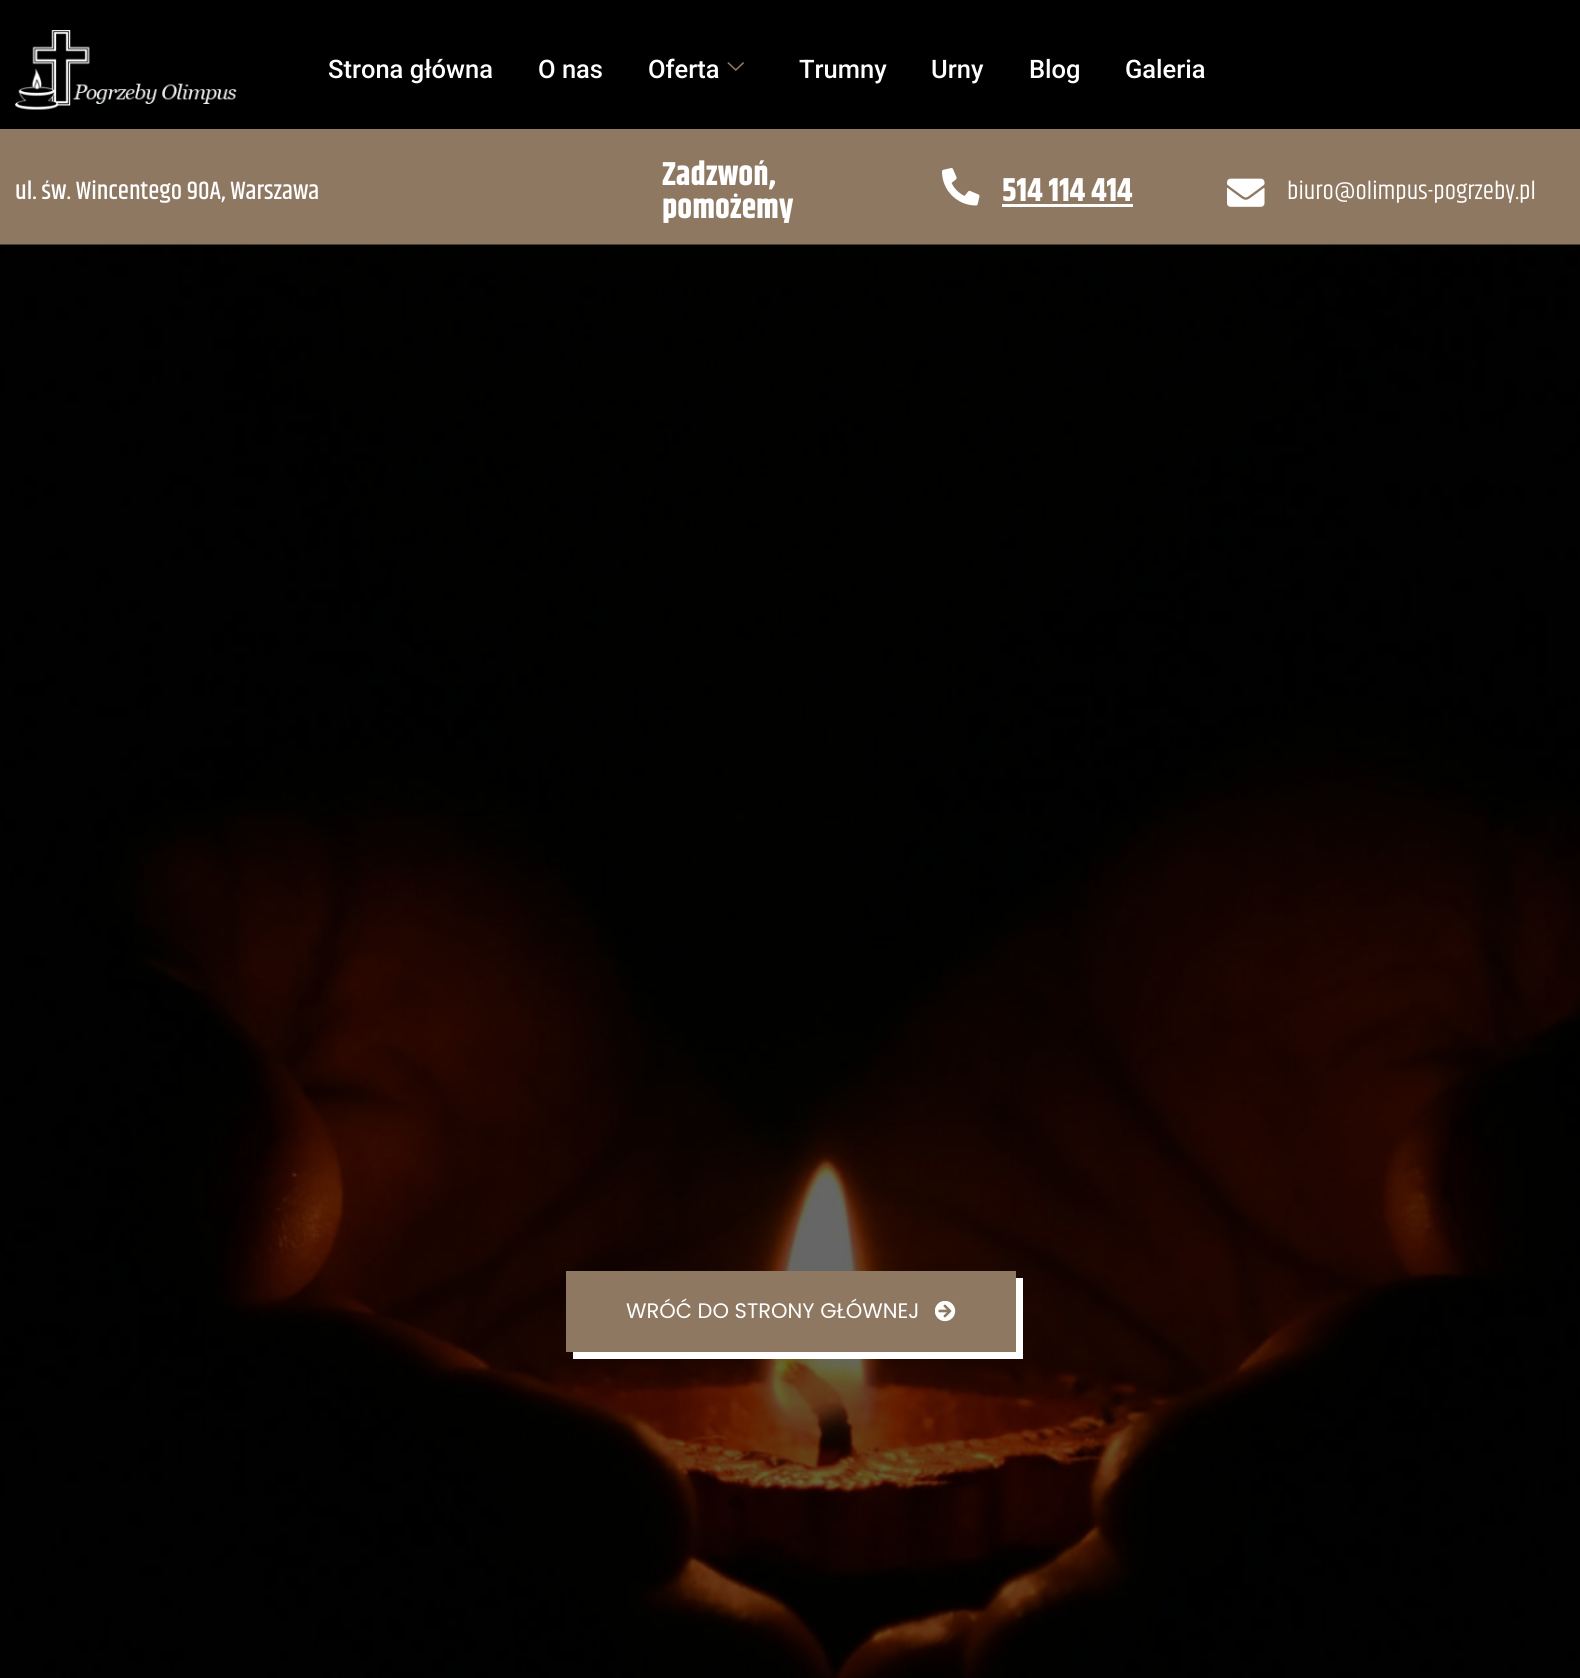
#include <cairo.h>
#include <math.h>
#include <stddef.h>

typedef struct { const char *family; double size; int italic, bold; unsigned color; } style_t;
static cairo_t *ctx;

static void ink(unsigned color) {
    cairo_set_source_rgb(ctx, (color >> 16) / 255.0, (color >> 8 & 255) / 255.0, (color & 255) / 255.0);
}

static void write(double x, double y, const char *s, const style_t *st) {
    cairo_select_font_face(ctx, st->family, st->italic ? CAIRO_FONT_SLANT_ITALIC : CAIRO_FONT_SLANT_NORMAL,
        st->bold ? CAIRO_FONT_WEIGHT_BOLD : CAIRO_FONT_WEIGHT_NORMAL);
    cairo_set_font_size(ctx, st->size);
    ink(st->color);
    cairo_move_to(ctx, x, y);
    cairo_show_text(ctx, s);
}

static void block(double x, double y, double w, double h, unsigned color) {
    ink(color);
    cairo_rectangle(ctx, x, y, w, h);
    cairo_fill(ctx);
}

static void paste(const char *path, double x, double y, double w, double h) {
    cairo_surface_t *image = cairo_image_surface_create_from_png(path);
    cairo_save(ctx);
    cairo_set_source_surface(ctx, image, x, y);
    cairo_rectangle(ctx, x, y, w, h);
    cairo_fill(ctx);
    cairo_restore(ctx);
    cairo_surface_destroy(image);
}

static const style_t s1 = {"Roboto Medium", 25.5, 0, 0, 0xffffff};
static const style_t s2 = {"Khand Medium", 25.5, 0, 0, 0xffffff};
static const style_t s3 = {"Khand", 33, 0, 1, 0xffffff};
static const style_t s4 = {"Khand", 25.5, 0, 0, 0xffffff};
static const style_t s5 = {"Poppins", 21, 0, 0, 0xffffff};

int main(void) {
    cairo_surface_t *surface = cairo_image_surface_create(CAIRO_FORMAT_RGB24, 1580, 1678);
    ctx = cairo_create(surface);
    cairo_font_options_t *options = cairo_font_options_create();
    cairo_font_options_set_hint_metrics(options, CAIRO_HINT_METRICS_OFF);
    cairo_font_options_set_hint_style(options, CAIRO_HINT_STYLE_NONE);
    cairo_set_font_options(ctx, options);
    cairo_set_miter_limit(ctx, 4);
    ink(0x000000);
    cairo_paint(ctx);
    paste("pic1.png", 15, 30, 222, 80);
    write(328, 78, "Strona główna", &s1);
    write(538, 78, "O nas", &s1);
    write(648, 78, "Oferta", &s1);
    paste("pic2.png", 727, 62, 17, 9);
    write(799, 78, "Trumny", &s1);
    write(931, 78, "Urny", &s1);
    write(1029, 78, "Blog", &s1);
    write(1125, 78, "Galeria", &s1);
    block(0, 129, 1580, 116, 0x8e7861);
    write(15, 199, "ul. św. Wincentego 90A, Warszawa", &s2);
    write(662, 185, "Zadzwoń,", &s3);
    write(662, 218, "pomożemy", &s3);
    paste("pic3.png", 942, 168, 38, 38);
    write(1002, 201, "514 114 414", &s3);
    block(1002, 204, 131, 3, 0xffffff);
    paste("pic4.png", 1227, 178, 38, 29);
    write(1287, 199, "biuro@olimpus-pogrzeby.pl", &s4);
    paste("pic5.png", 0, 244, 1580, 1434);
    cairo_new_path(ctx);
    cairo_move_to(ctx, 573, 1352);
    cairo_line_to(ctx, 573, 1359);
    cairo_line_to(ctx, 1023, 1359);
    cairo_line_to(ctx, 1023, 1278);
    cairo_line_to(ctx, 1016, 1278);
    cairo_line_to(ctx, 1016, 1352);
    cairo_close_path(ctx);
    cairo_fill(ctx);
    block(566, 1271, 450, 81, 0x8e7861);
    write(626, 1318, "WRÓĆ DO STRONY GŁÓWNEJ", &s5);
    paste("pic6.png", 935, 1301, 21, 21);
    cairo_surface_write_to_png(surface, "screenshot.png");
    cairo_font_options_destroy(options);
    cairo_destroy(ctx);
    cairo_surface_destroy(surface);
    return 0;
}
